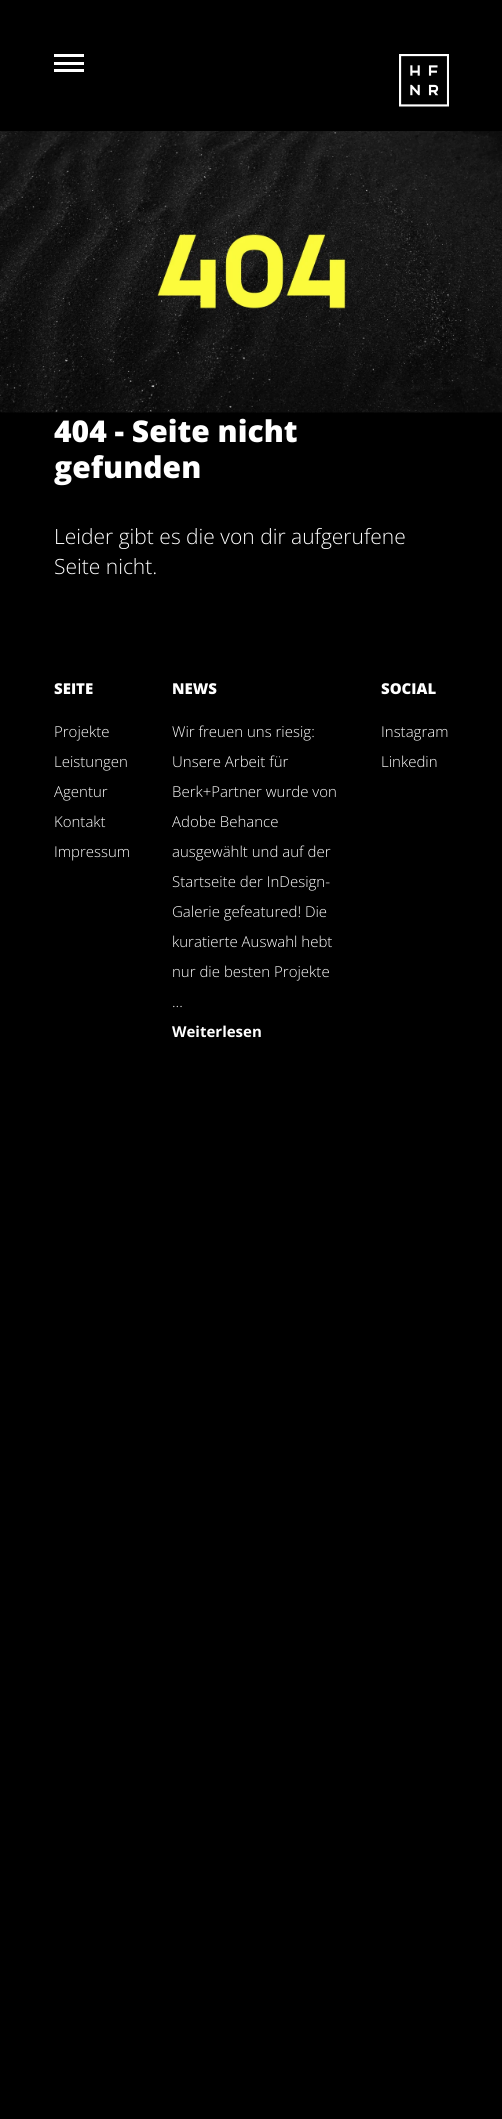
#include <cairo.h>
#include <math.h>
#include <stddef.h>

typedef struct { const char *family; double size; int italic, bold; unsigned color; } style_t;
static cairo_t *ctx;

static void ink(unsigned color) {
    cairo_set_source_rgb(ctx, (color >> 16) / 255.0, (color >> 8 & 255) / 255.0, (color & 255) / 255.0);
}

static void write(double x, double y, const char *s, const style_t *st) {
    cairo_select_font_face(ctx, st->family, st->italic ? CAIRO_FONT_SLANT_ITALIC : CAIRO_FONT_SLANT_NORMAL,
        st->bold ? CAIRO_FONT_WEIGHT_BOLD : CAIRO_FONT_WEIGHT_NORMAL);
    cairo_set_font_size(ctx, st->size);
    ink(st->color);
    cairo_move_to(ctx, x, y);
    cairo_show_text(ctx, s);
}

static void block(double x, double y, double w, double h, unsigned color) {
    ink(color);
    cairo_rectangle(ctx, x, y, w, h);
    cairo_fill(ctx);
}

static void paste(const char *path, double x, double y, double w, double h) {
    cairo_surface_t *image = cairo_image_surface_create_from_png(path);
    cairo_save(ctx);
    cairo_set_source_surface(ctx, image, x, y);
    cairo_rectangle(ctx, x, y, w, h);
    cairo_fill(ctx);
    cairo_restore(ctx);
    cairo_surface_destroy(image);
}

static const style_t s1 = {"Open Sans ExtraBold", 30, 0, 0, 0xffffff};
static const style_t s2 = {"Open Sans Light", 21, 0, 0, 0xffffff};
static const style_t s3 = {"Open Sans ExtraBold", 15, 0, 0, 0xffffff};
static const style_t s4 = {"Open Sans Light", 15, 0, 0, 0xffffff};
static const style_t s5 = {"Open Sans", 15, 0, 1, 0xffffff};

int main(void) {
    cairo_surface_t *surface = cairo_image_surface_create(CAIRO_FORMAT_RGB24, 502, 2119);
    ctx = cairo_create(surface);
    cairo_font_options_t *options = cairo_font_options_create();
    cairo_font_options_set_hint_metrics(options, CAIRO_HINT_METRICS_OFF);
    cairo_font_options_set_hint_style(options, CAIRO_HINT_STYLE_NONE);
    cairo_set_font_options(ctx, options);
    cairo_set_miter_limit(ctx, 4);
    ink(0x000000);
    cairo_paint(ctx);
    block(54, 54, 30, 3, 0xffffff);
    block(54, 62, 30, 3, 0xffffff);
    block(54, 69, 30, 3, 0xffffff);
    paste("pic1.png", 399, 54, 50, 53);
    paste("pic2.png", 0, 131, 502, 282);
    write(54, 442, "404 - Seite nicht", &s1);
    write(54, 478, "gefunden", &s1);
    write(54, 544, "Leider gibt es die von dir aufgerufene", &s2);
    write(54, 574, "Seite nicht.", &s2);
    write(54, 694, "SEITE", &s3);
    write(54, 737, "Projekte", &s4);
    write(54, 767, "Leistungen", &s4);
    write(54, 797, "Agentur", &s4);
    write(54, 827, "Kontakt", &s4);
    write(54, 857, "Impressum", &s4);
    write(172, 694, "NEWS", &s3);
    write(172, 737, "Wir freuen uns riesig:", &s4);
    write(172, 767, "Unsere Arbeit für", &s4);
    write(172, 797, "Berk+Partner wurde von", &s4);
    write(172, 827, "Adobe Behance", &s4);
    write(172, 857, "ausgewählt und auf der", &s4);
    write(172, 887, "Startseite der InDesign-", &s4);
    write(172, 917, "Galerie gefeatured! Die", &s4);
    write(172, 947, "kuratierte Auswahl hebt", &s4);
    write(172, 977, "nur die besten Projekte", &s4);
    write(172, 1007, "...", &s4);
    write(172, 1037, "Weiterlesen", &s5);
    write(381, 694, "SOCIAL", &s3);
    write(381, 737, "Instagram", &s4);
    write(381, 767, "Linkedin", &s4);
    cairo_surface_write_to_png(surface, "screenshot.png");
    cairo_font_options_destroy(options);
    cairo_destroy(ctx);
    cairo_surface_destroy(surface);
    return 0;
}
